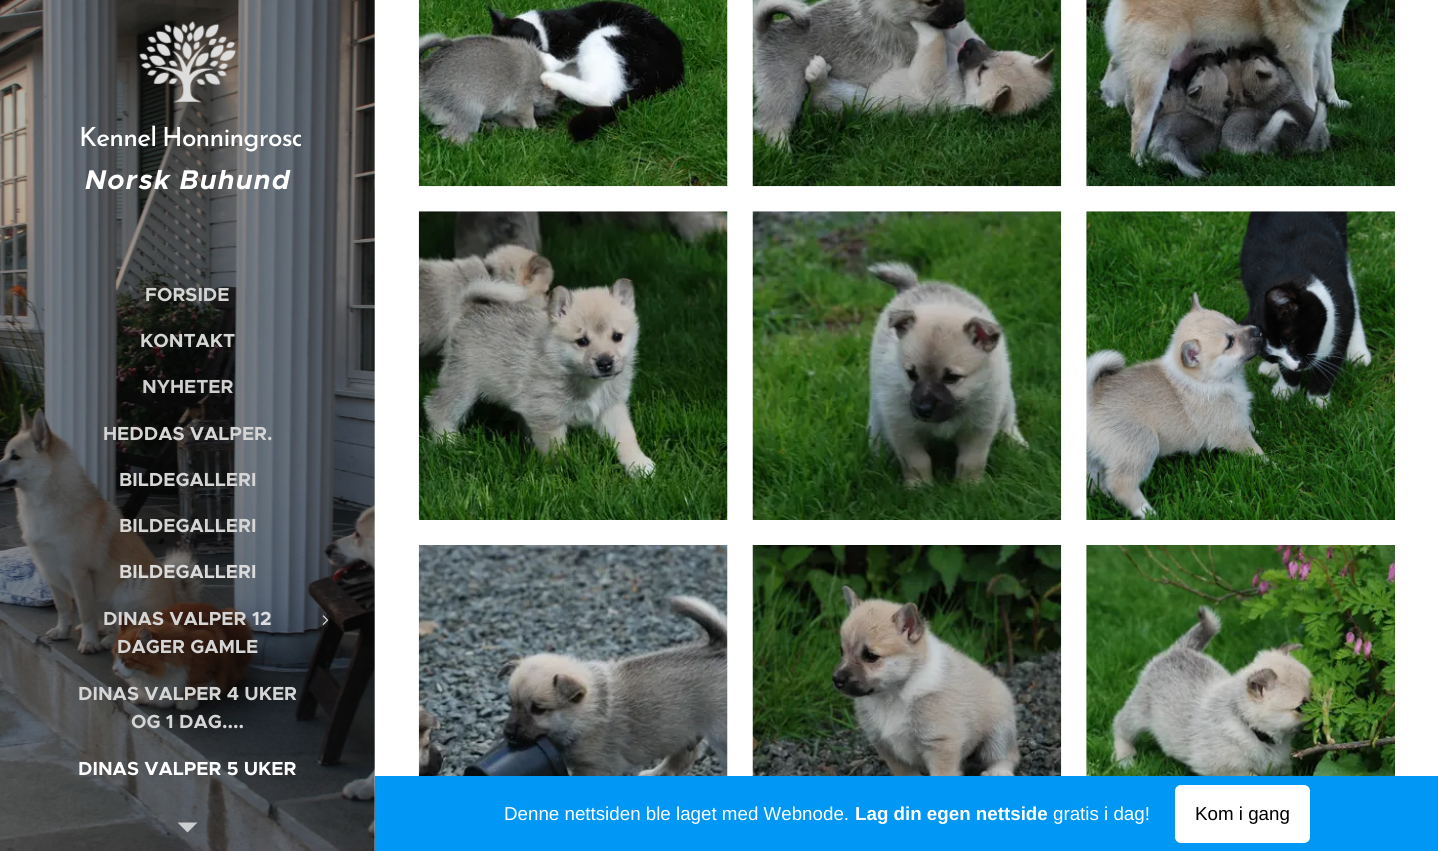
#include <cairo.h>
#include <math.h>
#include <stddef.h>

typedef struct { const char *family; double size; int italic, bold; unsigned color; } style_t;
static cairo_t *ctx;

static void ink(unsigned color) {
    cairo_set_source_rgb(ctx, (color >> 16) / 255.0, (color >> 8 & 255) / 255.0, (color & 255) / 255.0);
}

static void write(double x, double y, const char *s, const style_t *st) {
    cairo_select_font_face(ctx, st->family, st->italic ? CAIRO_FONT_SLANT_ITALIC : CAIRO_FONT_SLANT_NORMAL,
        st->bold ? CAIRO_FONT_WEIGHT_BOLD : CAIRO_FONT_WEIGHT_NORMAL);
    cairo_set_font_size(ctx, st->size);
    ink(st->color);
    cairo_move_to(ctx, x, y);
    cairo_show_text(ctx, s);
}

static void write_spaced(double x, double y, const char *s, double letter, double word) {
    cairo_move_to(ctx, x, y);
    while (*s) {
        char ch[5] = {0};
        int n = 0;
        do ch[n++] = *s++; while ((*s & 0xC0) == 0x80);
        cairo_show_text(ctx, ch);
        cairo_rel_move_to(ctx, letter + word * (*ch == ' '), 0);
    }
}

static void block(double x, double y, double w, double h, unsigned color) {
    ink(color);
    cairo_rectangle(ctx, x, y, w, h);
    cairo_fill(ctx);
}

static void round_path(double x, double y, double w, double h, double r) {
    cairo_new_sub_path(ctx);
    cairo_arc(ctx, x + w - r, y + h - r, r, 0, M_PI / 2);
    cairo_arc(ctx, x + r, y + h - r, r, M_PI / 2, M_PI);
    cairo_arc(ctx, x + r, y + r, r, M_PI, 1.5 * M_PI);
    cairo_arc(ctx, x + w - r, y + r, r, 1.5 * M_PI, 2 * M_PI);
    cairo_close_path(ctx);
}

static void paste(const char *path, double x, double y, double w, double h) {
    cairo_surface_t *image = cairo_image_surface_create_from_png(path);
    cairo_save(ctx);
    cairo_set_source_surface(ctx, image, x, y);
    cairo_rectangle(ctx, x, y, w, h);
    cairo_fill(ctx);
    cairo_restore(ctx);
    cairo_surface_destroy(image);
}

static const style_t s1 = {"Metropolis", 19, 0, 1, 0xd4d5d4};
static const style_t s2 = {"Metropolis", 19, 0, 1, 0xcfcfcf};
static const style_t s3 = {"Metropolis", 19, 0, 1, 0xdadada};
static const style_t s4 = {"Metropolis", 19, 0, 1, 0xdbdde1};
static const style_t s5 = {"Metropolis", 19, 0, 1, 0xffffff};
static const style_t s6 = {"Liberation Sans", 18.75, 0, 0, 0xffffff};
static const style_t s7 = {"Liberation Sans", 18.75, 0, 1, 0xffffff};
static const style_t s8 = {"Liberation Sans", 18.75, 0, 0, 0x000000};

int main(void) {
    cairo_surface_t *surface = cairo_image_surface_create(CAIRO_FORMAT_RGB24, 1438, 851);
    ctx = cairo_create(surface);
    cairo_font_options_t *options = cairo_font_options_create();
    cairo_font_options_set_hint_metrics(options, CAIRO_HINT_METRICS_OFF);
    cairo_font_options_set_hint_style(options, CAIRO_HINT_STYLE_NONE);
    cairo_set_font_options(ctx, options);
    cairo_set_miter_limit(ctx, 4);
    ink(0xffffff);
    cairo_paint(ctx);
    paste("pic1.png", 0, 0, 375, 851);
    paste("pic2.png", 139, 21, 98, 82);
    cairo_save(ctx);
    cairo_rectangle(ctx, 74, 116, 227, 43);
    cairo_clip(ctx);
    cairo_select_font_face(ctx, "Josefin Sans Medium", CAIRO_FONT_SLANT_NORMAL, CAIRO_FONT_WEIGHT_NORMAL);
    cairo_set_font_size(ctx, 26.25);
    ink(0xffffff);
    write_spaced(79, 146, "Kennel Honningrosa", -0.75, -2);
    cairo_restore(ctx);
    cairo_select_font_face(ctx, "Metropolis", CAIRO_FONT_SLANT_ITALIC, CAIRO_FONT_WEIGHT_BOLD);
    cairo_set_font_size(ctx, 27.25);
    ink(0xffffff);
    write_spaced(85, 189, "Norsk Buhund", 1.25, 0);
    write(145, 301, "FORSIDE", &s1);
    write(140, 347, "KONTAKT", &s1);
    write(142, 393, "NYHETER", &s2);
    write(103, 440, "HEDDAS VALPER.", &s1);
    write(119, 486, "BILDEGALLERI", &s1);
    write(119, 532, "BILDEGALLERI", &s1);
    write(119, 578, "BILDEGALLERI", &s3);
    write(103, 625, "DINAS VALPER", &s1);
    write(252, 625, "12", &s4);
    write(117, 653, "DAGER GAMLE", &s1);
    paste("pic3.png", 322, 615, 7, 10);
    write(78, 700, "DINAS VALPER 4 UKER", &s1);
    write(131, 728, "OG 1 DAG....", &s1);
    write(78, 775, "DINAS VALPER 5 UKER", &s5);
    cairo_set_source_rgba(ctx, 1, 1, 1, 0.7);
    cairo_new_path(ctx);
    cairo_move_to(ctx, 177.5, 822.5);
    cairo_line_to(ctx, 197.5, 822.5);
    cairo_line_to(ctx, 187.5, 832.5);
    cairo_close_path(ctx);
    cairo_fill(ctx);
    cairo_set_source_rgba(ctx, 1, 1, 1, 0.3);
    cairo_rectangle(ctx, 374, 0, 1, 851);
    cairo_fill(ctx);
    paste("pic4.png", 418, 0, 310, 187);
    paste("pic5.png", 752, 0, 310, 187);
    paste("pic6.png", 1086, 0, 309, 187);
    paste("pic7.png", 418, 211, 310, 309);
    paste("pic8.png", 752, 211, 310, 309);
    paste("pic9.png", 1086, 211, 309, 309);
    paste("pic10.png", 418, 545, 310, 231);
    paste("pic11.png", 752, 545, 310, 231);
    paste("pic12.png", 1086, 545, 309, 231);
    block(375, 776, 1063, 75, 0x0097f5);
    write(504, 820, "Denne nettsiden ble laget med Webnode.", &s6);
    write(855, 820, "Lag din egen nettside", &s7);
    write(1053, 820, "gratis i dag!", &s6);
    round_path(1175, 785, 135, 58, 6);
    cairo_fill(ctx);
    write(1195, 820, "Kom i gang", &s8);
    cairo_surface_write_to_png(surface, "screenshot.png");
    cairo_font_options_destroy(options);
    cairo_destroy(ctx);
    cairo_surface_destroy(surface);
    return 0;
}
